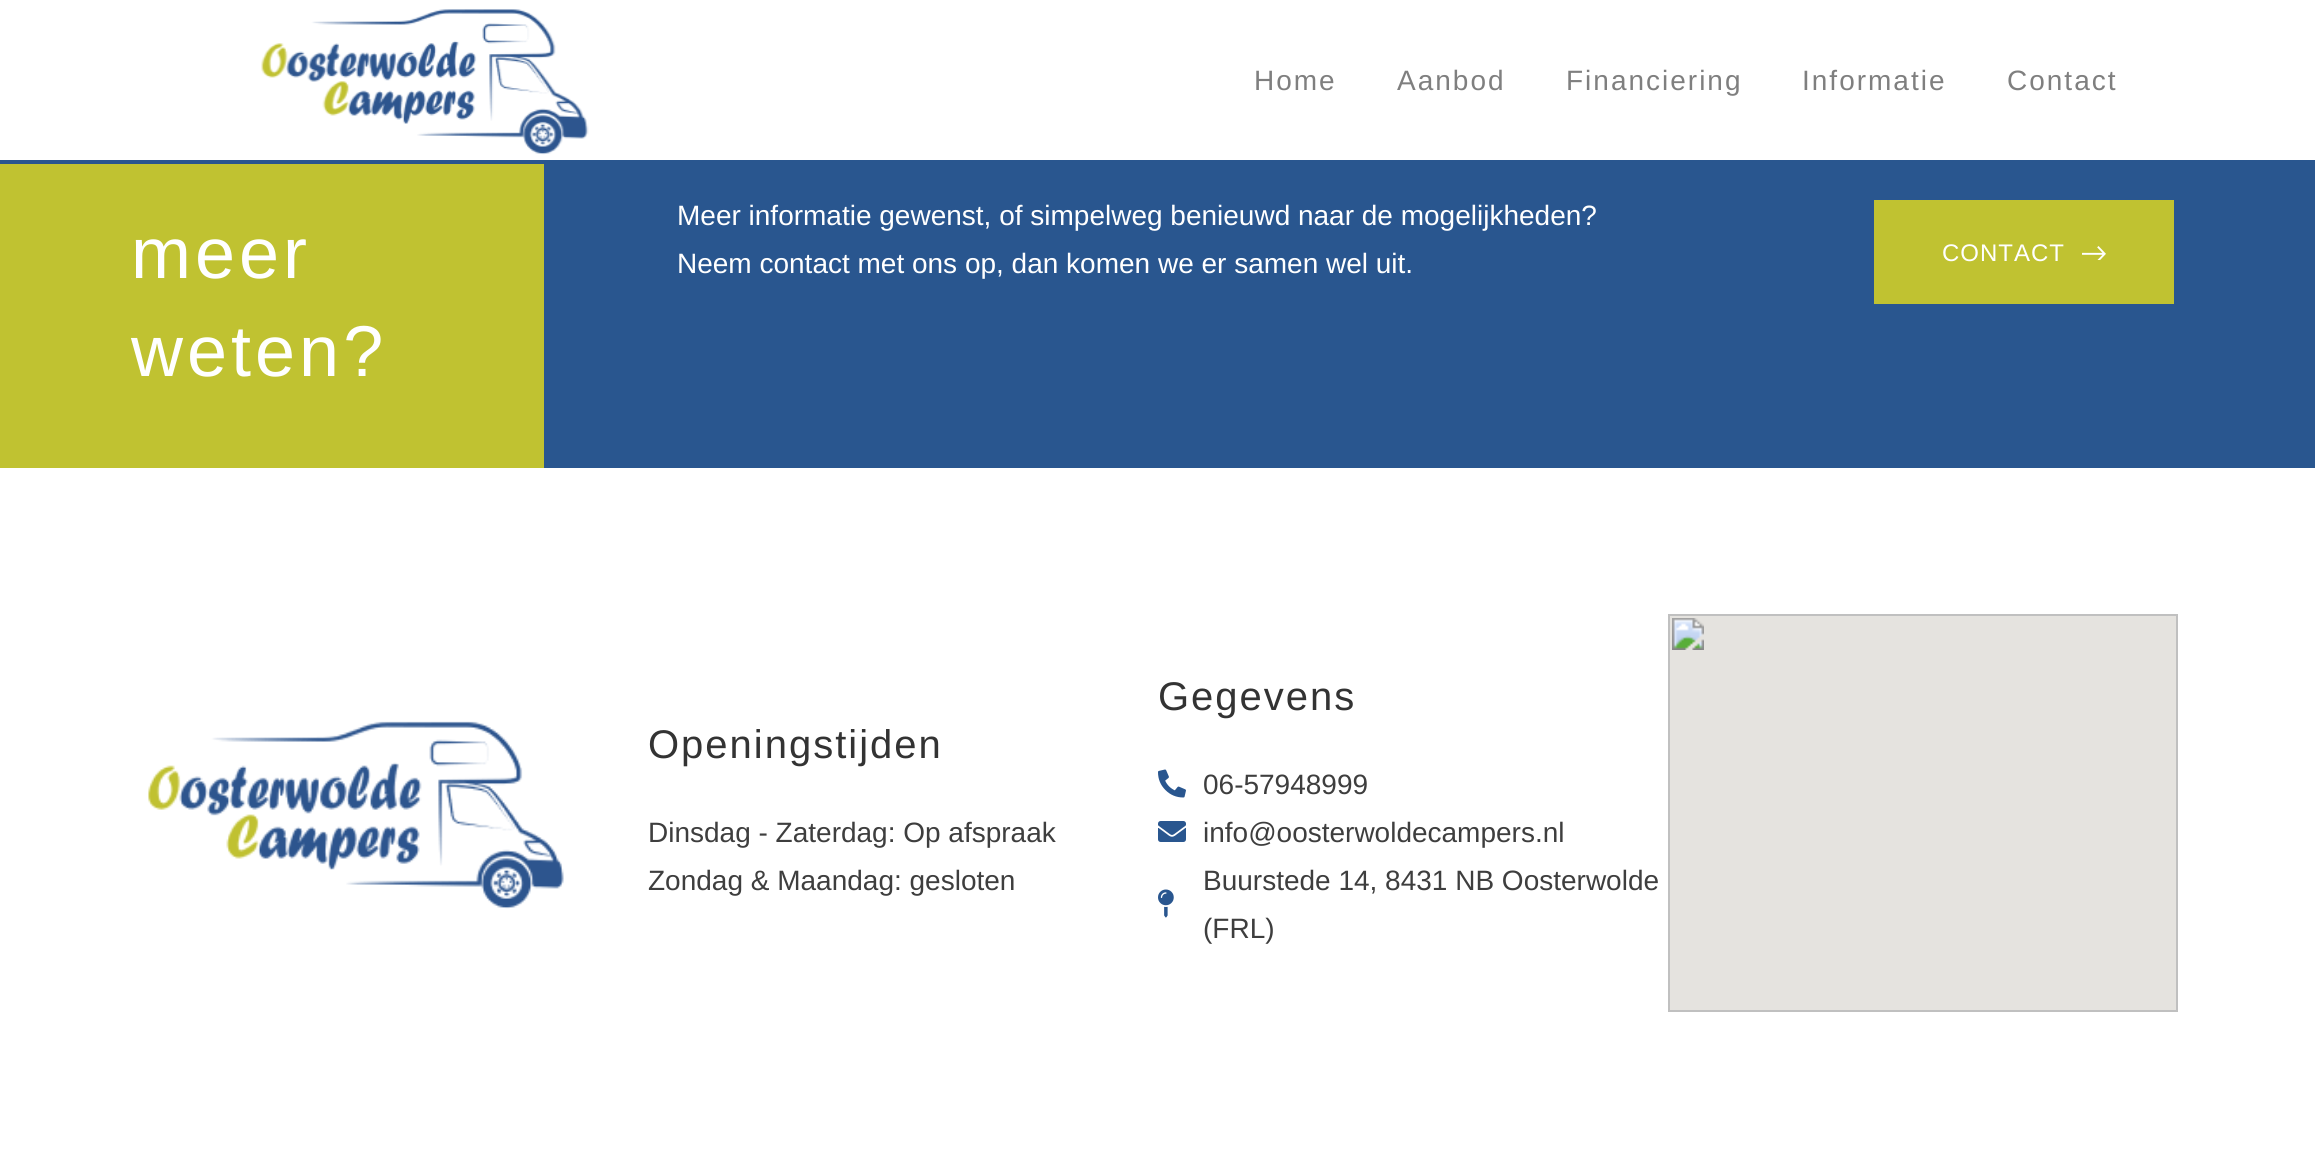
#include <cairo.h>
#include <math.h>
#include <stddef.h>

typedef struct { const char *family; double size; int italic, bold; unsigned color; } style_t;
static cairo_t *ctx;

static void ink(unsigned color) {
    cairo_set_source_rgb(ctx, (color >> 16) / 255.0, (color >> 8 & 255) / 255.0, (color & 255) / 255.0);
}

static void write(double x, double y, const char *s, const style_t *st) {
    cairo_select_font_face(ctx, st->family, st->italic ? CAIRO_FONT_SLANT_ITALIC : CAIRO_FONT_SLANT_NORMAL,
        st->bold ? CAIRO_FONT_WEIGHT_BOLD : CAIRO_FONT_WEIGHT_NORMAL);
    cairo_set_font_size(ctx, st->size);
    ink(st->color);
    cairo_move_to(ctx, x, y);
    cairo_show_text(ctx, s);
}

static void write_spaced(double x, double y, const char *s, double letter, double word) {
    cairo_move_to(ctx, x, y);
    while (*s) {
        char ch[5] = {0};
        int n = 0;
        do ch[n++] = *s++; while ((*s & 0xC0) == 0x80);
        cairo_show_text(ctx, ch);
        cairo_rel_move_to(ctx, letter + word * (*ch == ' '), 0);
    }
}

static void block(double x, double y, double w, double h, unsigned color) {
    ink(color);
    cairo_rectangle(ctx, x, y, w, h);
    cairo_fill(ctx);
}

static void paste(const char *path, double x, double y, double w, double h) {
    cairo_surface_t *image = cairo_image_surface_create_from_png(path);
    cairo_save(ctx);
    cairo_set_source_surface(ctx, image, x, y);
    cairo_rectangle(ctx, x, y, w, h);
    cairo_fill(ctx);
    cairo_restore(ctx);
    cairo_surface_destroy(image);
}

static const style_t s1 = {"Liberation Sans", 28, 0, 0, 0xffffff};
static const style_t s2 = {"Liberation Sans", 28, 0, 0, 0x3e3e3e};

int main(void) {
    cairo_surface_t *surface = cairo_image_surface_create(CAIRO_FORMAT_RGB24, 2315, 1152);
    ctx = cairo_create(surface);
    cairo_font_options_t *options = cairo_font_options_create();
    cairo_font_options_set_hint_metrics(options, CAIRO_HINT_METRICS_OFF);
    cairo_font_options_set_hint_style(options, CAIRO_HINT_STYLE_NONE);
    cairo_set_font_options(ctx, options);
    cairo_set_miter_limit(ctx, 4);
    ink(0xffffff);
    cairo_paint(ctx);
    block(0, 160, 2315, 4, 0x29568f);
    paste("pic1.png", 261, 9, 328, 146);
    cairo_select_font_face(ctx, "Liberation Sans", CAIRO_FONT_SLANT_NORMAL, CAIRO_FONT_WEIGHT_NORMAL);
    cairo_set_font_size(ctx, 28);
    ink(0x7f7f7f);
    write_spaced(1254, 90, "Home", 2, 0);
    write_spaced(1397, 90, "Aanbod", 2, 0);
    write_spaced(1566, 90, "Financiering", 2, 0);
    write_spaced(1802, 90, "Informatie", 2, 0);
    write_spaced(2007, 90, "Contact", 2, 0);
    block(0, 164, 544, 304, 0xc0c231);
    cairo_set_font_size(ctx, 72);
    ink(0xffffff);
    write_spaced(131, 278, "meer", 4, 0);
    write_spaced(131, 376, "weten?", 4, 0);
    block(544, 164, 1771, 304, 0x29568f);
    write(677, 225, "Meer informatie gewenst, of simpelweg benieuwd naar de mogelijkheden?", &s1);
    write(677, 273, "Neem contact met ons op, dan komen we er samen wel uit.", &s1);
    block(1874, 200, 300, 104, 0xc0c231);
    cairo_set_font_size(ctx, 24);
    ink(0xffffff);
    write_spaced(1942, 261, "CONTACT", 1, 0);
    paste("pic2.png", 2082, 246, 24, 14);
    paste("pic3.png", 148, 721, 416, 188);
    cairo_set_font_size(ctx, 40);
    ink(0x333333);
    write_spaced(648, 758, "Openingstijden", 2, 0);
    write(648, 842, "Dinsdag - Zaterdag: Op afspraak", &s2);
    write(648, 890, "Zondag & Maandag: gesloten", &s2);
    cairo_set_font_size(ctx, 40);
    ink(0x333333);
    write_spaced(1158, 710, "Gegevens", 2, 0);
    paste("pic4.png", 1158, 769, 28, 29);
    write(1203, 794, "06-57948999", &s2);
    paste("pic5.png", 1158, 821, 28, 21);
    write(1203, 842, "info@oosterwoldecampers.nl", &s2);
    paste("pic6.png", 1158, 889, 16, 29);
    write(1203, 890, "Buurstede 14, 8431 NB Oosterwolde", &s2);
    write(1203, 938, "(FRL)", &s2);
    paste("pic7.png", 1668, 614, 510, 398);
    cairo_surface_write_to_png(surface, "screenshot.png");
    cairo_font_options_destroy(options);
    cairo_destroy(ctx);
    cairo_surface_destroy(surface);
    return 0;
}
